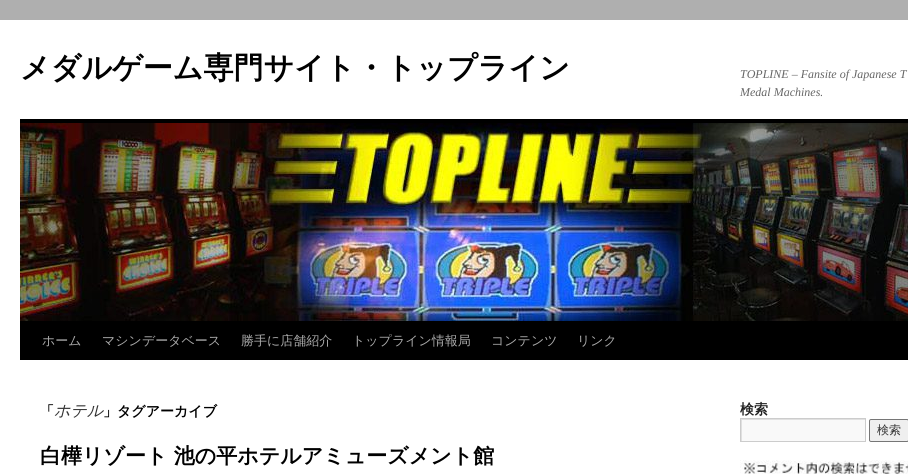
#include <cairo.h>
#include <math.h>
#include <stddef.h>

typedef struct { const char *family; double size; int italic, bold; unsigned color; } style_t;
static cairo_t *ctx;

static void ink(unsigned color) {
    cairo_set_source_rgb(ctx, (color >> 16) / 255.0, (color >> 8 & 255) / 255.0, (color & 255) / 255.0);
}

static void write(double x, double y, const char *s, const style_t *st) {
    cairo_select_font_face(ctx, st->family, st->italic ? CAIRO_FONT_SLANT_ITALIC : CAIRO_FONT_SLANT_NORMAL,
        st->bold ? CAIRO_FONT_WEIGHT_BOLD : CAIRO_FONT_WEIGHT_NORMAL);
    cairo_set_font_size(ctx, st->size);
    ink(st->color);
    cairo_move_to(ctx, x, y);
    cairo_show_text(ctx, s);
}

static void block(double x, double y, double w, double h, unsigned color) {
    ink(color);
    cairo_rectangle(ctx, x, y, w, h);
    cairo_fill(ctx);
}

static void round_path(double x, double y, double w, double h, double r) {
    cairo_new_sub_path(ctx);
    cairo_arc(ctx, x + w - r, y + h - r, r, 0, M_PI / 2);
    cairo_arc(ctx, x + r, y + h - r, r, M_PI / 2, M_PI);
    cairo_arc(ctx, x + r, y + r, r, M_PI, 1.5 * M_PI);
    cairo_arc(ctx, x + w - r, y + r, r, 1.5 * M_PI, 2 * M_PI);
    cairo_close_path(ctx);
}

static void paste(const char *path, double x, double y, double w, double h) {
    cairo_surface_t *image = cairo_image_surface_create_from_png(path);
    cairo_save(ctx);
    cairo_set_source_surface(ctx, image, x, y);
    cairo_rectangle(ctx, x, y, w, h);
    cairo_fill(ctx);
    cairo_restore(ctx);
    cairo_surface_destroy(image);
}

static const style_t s1 = {"WenQuanYi Zen Hei", 30, 0, 1, 0x000000};
static const style_t s2 = {"Liberation Serif", 12, 1, 0, 0x666666};
static const style_t s3 = {"WenQuanYi Zen Hei Medium", 13, 0, 0, 0xaaaaaa};
static const style_t s4 = {"WenQuanYi Zen Hei", 14, 0, 1, 0x000000};
static const style_t s5 = {"WenQuanYi Zen Hei Medium", 16, 1, 0, 0x333333};
static const style_t s6 = {"WenQuanYi Zen Hei", 21, 0, 1, 0x000000};
static const style_t s7 = {"WenQuanYi Zen Hei", 14, 0, 1, 0x222222};
static const style_t s8 = {"WenQuanYi Zen Hei Medium", 12, 0, 0, 0x333333};

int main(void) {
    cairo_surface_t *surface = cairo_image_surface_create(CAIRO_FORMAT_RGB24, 908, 474);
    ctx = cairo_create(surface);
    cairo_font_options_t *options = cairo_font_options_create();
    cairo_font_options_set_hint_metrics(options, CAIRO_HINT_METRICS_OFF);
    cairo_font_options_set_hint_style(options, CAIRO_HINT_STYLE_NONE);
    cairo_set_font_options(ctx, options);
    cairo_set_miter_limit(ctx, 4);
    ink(0xafafaf);
    cairo_paint(ctx);
    block(0, 20, 908, 454, 0xffffff);
    write(20, 78, "メダルゲーム専門サイト・トップライン", &s1);
    write(740, 78, "TOPLINE – Fansite of Japanese T", &s2);
    write(740, 96, "Medal Machines.", &s2);
    block(20, 119, 888, 4, 0x000000);
    block(20, 321, 888, 39, 0x000000);
    paste("pic1.png", 20, 123, 888, 198);
    write(42, 345, "ホーム", &s3);
    write(102, 345, "マシンデータベース", &s3);
    write(241, 345, "勝手に店舗紹介", &s3);
    write(352, 345, "トップライン情報局", &s3);
    write(491, 345, "コンテンツ", &s3);
    write(577, 345, "リンク", &s3);
    write(40, 416, "「", &s4);
    write(54, 416, "ホテル", &s5);
    write(103, 416, "」タグアーカイブ", &s4);
    write(40, 463, "白樺リゾート 池の平ホテルアミューズメント館", &s6);
    write(740, 414, "検索", &s7);
    block(742, 420, 123, 21, 0xf9f9f9);
    cairo_save(ctx);
    cairo_rectangle(ctx, 741, 419, 124, 22);
    cairo_clip(ctx);
    ink(0xe0e0e0);
    cairo_set_fill_rule(ctx, CAIRO_FILL_RULE_EVEN_ODD);
    cairo_new_path(ctx);
    cairo_move_to(ctx, 642, 320);
    cairo_line_to(ctx, 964, 320);
    cairo_line_to(ctx, 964, 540);
    cairo_line_to(ctx, 642, 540);
    cairo_close_path(ctx);
    cairo_move_to(ctx, 742, 420);
    cairo_line_to(ctx, 866, 420);
    cairo_line_to(ctx, 866, 442);
    cairo_line_to(ctx, 742, 442);
    cairo_close_path(ctx);
    cairo_fill(ctx);
    cairo_restore(ctx);
    cairo_rectangle(ctx, 740.5, 418.5, 125, 23);
    ink(0xcccccc);
    cairo_set_line_width(ctx, 1);
    cairo_stroke(ctx);
    ink(0xefefef);
    round_path(869.5, 419.5, 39, 22, 1.5);
    cairo_fill_preserve(ctx);
    ink(0x767676);
    cairo_stroke(ctx);
    write(877, 434, "検索", &s8);
    paste("pic2.png", 740, 460, 168, 14);
    cairo_surface_write_to_png(surface, "screenshot.png");
    cairo_font_options_destroy(options);
    cairo_destroy(ctx);
    cairo_surface_destroy(surface);
    return 0;
}
